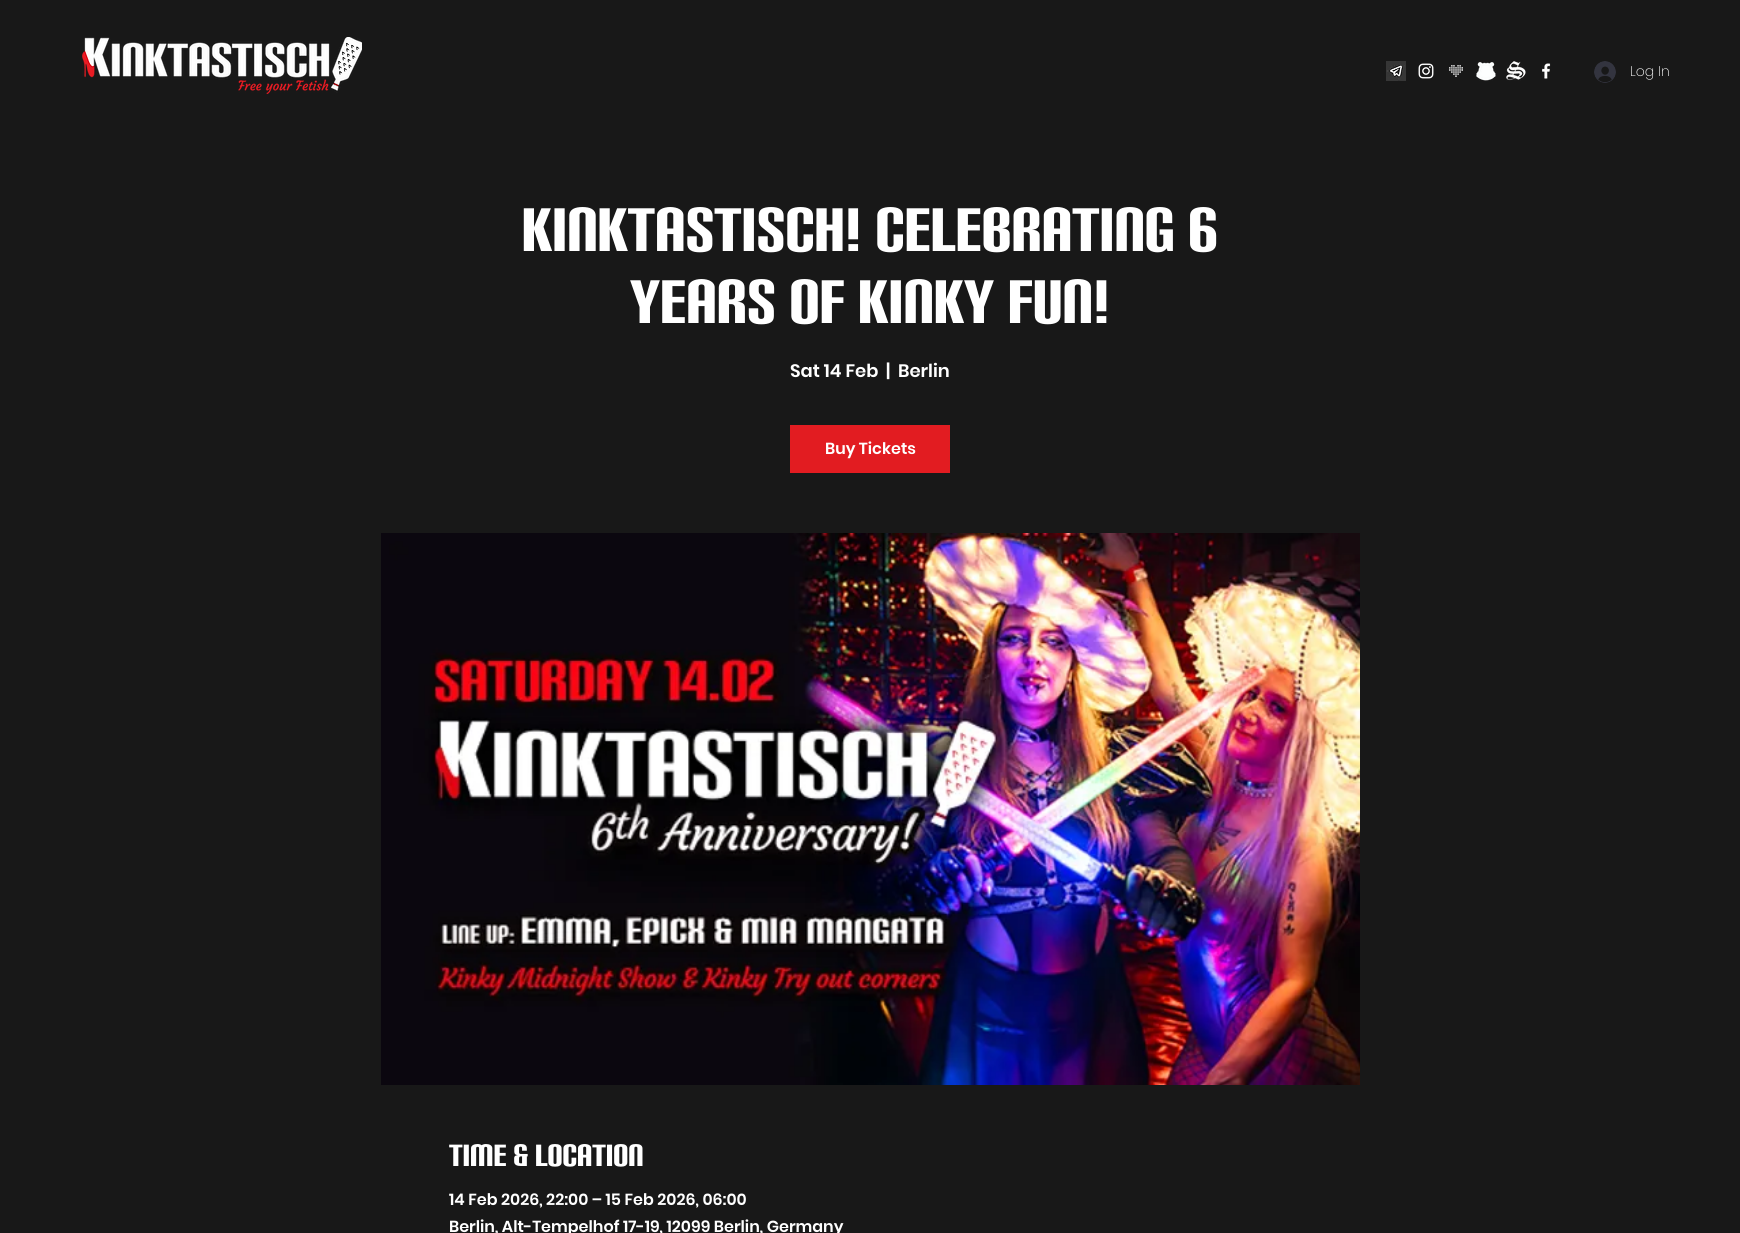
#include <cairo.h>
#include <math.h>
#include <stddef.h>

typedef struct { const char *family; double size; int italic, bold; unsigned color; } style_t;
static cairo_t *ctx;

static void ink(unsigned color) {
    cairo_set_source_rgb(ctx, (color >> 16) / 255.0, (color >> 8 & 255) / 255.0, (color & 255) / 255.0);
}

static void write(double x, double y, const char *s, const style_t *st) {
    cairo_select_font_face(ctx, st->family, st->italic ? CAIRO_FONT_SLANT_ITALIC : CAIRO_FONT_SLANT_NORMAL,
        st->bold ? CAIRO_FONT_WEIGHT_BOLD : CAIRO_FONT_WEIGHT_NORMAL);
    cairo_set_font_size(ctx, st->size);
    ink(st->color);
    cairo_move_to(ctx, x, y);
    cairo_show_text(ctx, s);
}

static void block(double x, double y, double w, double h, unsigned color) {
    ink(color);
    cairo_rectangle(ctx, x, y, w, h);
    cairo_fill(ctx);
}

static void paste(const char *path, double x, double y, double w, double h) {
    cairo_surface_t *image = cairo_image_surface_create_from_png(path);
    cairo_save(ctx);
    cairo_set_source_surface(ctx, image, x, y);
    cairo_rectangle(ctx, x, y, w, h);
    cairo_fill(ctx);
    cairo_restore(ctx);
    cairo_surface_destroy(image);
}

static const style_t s1 = {"Poppins ExtraLight", 14, 0, 0, 0xffffff};
static const style_t s2 = {"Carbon", 60, 0, 0, 0xffffff};
static const style_t s3 = {"Poppins SemiBold", 18, 0, 0, 0xffffff};
static const style_t s4 = {"Poppins SemiBold", 16, 0, 0, 0xffffff};
static const style_t s5 = {"Carbon", 30, 0, 0, 0xffffff};

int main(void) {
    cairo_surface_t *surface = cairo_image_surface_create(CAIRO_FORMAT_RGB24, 1740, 1233);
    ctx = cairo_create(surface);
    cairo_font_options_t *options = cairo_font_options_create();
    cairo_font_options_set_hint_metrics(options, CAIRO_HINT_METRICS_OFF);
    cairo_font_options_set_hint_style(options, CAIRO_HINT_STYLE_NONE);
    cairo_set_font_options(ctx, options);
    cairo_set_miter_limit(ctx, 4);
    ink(0x181818);
    cairo_paint(ctx);
    paste("pic1.png", 82, 37, 280, 57);
    paste("pic2.png", 1386, 61, 20, 20);
    paste("pic3.png", 1418, 63, 16, 16);
    paste("pic4.png", 1449, 65, 14, 12);
    paste("pic5.png", 1476, 62, 20, 19);
    paste("pic6.png", 1506, 61, 20, 20);
    paste("pic7.png", 1542, 63, 9, 16);
    paste("pic8.png", 1594, 61, 22, 22);
    write(1630, 76, "Log In", &s1);
    write(522, 251, "KINKTASTISCH! Celebrating 6", &s2);
    write(630, 323, "years of Kinky fun!", &s2);
    write(790, 377, "Sat 14 Feb", &s3);
    write(886, 377, "|", &s3);
    write(898, 377, "Berlin", &s3);
    block(790, 425, 160, 48, 0xe21c21);
    write(825, 454, "Buy Tickets", &s4);
    paste("pic9.png", 381, 533, 979, 552);
    write(449, 1166, "Time & Location", &s5);
    write(449, 1205, "14 Feb 2026, 22:00 – 15 Feb 2026, 06:00", &s4);
    write(449, 1232, "Berlin, Alt-Tempelhof 17-19, 12099 Berlin, Germany", &s4);
    cairo_surface_write_to_png(surface, "screenshot.png");
    cairo_font_options_destroy(options);
    cairo_destroy(ctx);
    cairo_surface_destroy(surface);
    return 0;
}
